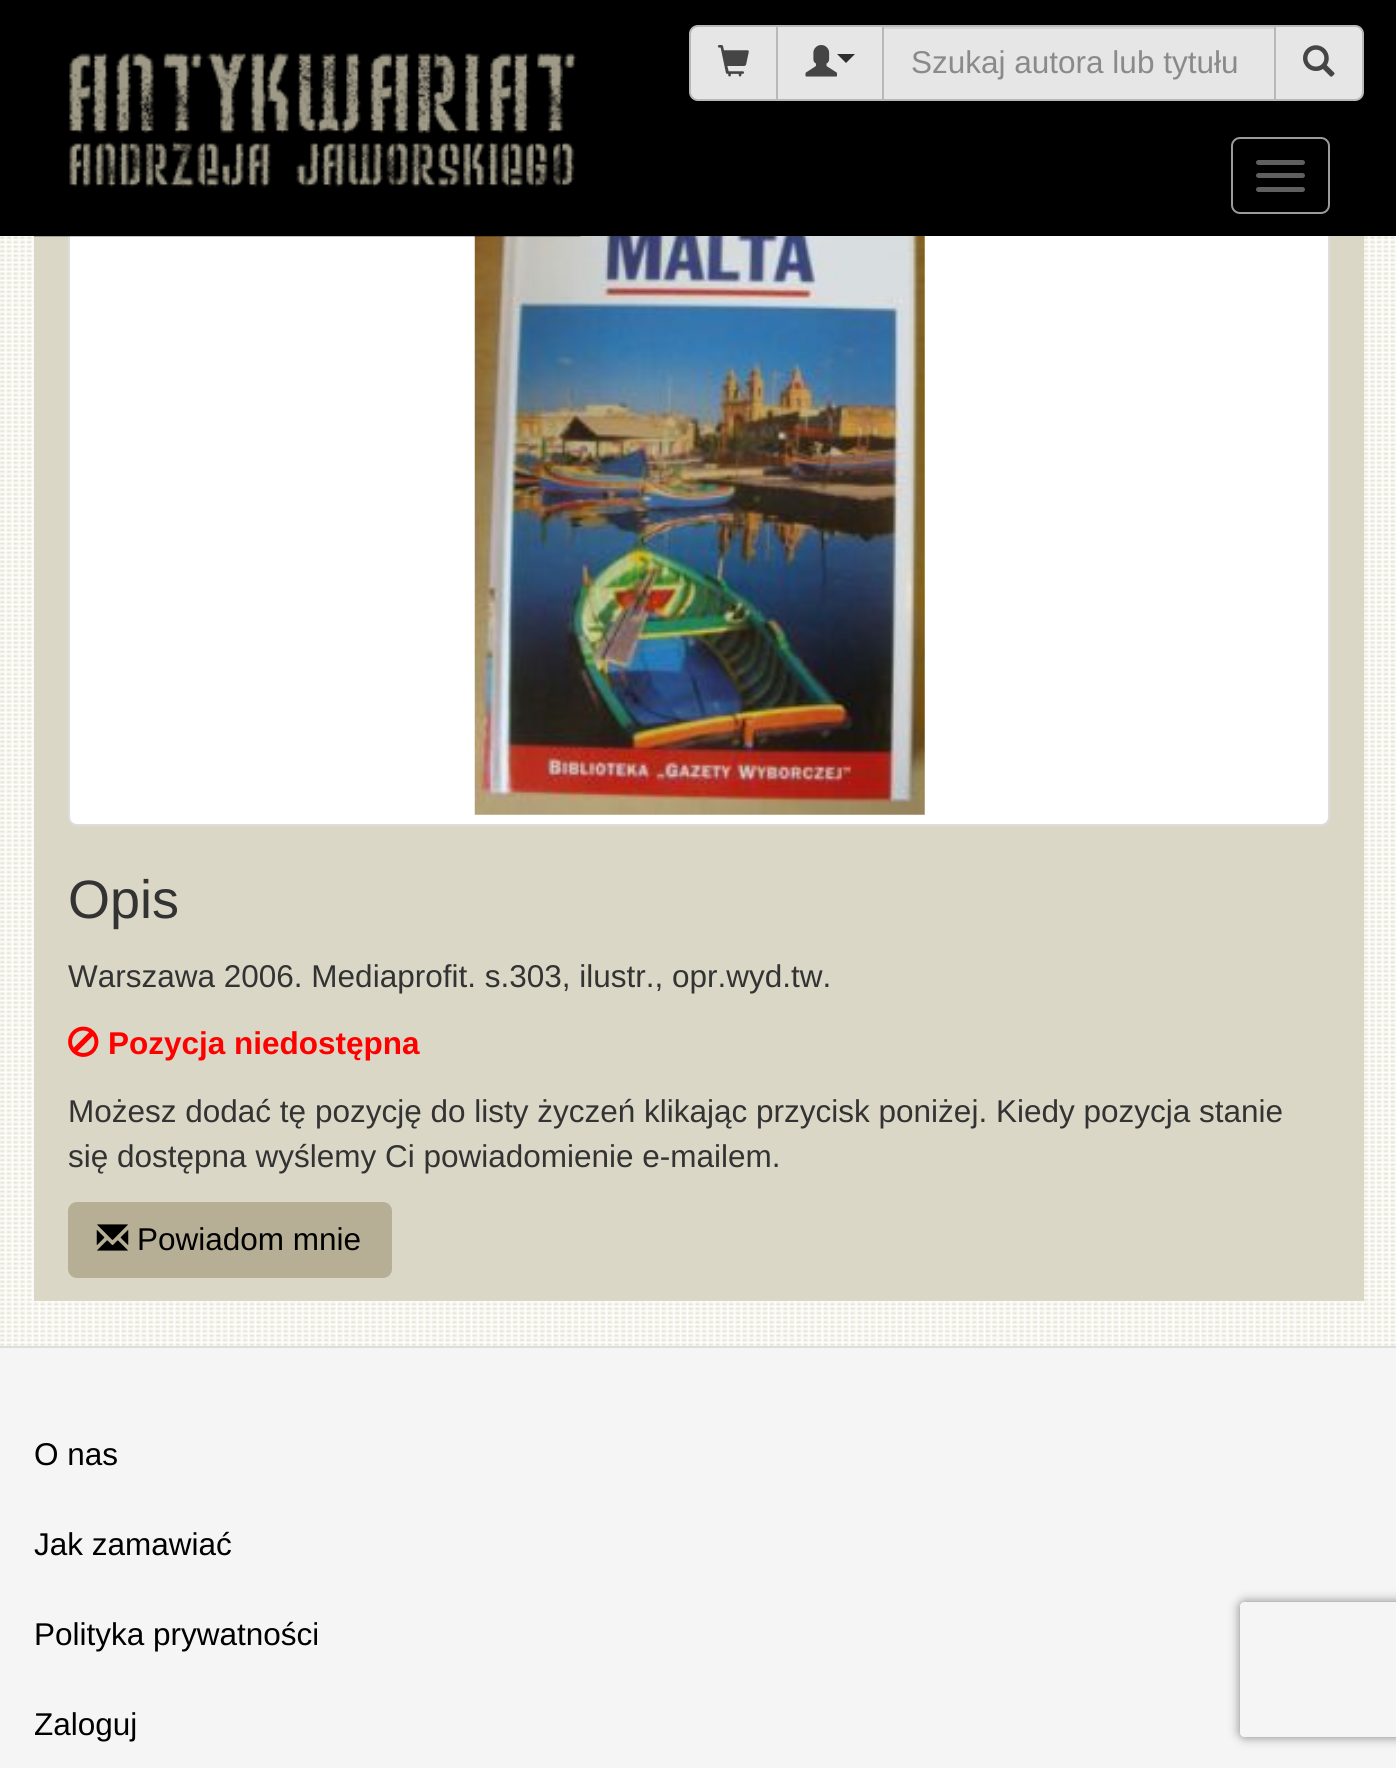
#include <cairo.h>
#include <math.h>
#include <stddef.h>

typedef struct { const char *family; double size; int italic, bold; unsigned color; } style_t;
static cairo_t *ctx;

static void ink(unsigned color) {
    cairo_set_source_rgb(ctx, (color >> 16) / 255.0, (color >> 8 & 255) / 255.0, (color & 255) / 255.0);
}

static void write(double x, double y, const char *s, const style_t *st) {
    cairo_select_font_face(ctx, st->family, st->italic ? CAIRO_FONT_SLANT_ITALIC : CAIRO_FONT_SLANT_NORMAL,
        st->bold ? CAIRO_FONT_WEIGHT_BOLD : CAIRO_FONT_WEIGHT_NORMAL);
    cairo_set_font_size(ctx, st->size);
    ink(st->color);
    cairo_move_to(ctx, x, y);
    cairo_show_text(ctx, s);
}

static void block(double x, double y, double w, double h, unsigned color) {
    ink(color);
    cairo_rectangle(ctx, x, y, w, h);
    cairo_fill(ctx);
}

static void round_path(double x, double y, double w, double h, double r) {
    cairo_new_sub_path(ctx);
    cairo_arc(ctx, x + w - r, y + h - r, r, 0, M_PI / 2);
    cairo_arc(ctx, x + r, y + h - r, r, M_PI / 2, M_PI);
    cairo_arc(ctx, x + r, y + r, r, M_PI, 1.5 * M_PI);
    cairo_arc(ctx, x + w - r, y + r, r, 1.5 * M_PI, 2 * M_PI);
    cairo_close_path(ctx);
}

static void blur_box(double x, double y, double w, double h, double r, double blur, double alpha) {
    cairo_push_group_with_content(ctx, CAIRO_CONTENT_ALPHA);
    cairo_set_operator(ctx, CAIRO_OPERATOR_SOURCE);
    for (int i = 15; i >= -15 && fmin(w, h) + blur * i / 3 > 0; i -= 2) {
        double e = blur * i / 6;
        cairo_set_source_rgba(ctx, 0, 0, 0, alpha * erfc((i - 1) / 8.5) / 2);
        round_path(x - e, y - e, w + 2 * e, h + 2 * e, fmax(0, fmin(r + e + blur * .6, fmin(w, h) / 2 + e)));
        cairo_fill(ctx);
    }
    cairo_pattern_t *soft = cairo_pop_group(ctx);
    cairo_mask(ctx, soft);
    cairo_pattern_destroy(soft);
}

static void paste(const char *path, double x, double y, double w, double h) {
    cairo_surface_t *image = cairo_image_surface_create_from_png(path);
    cairo_save(ctx);
    cairo_set_source_surface(ctx, image, x, y);
    cairo_rectangle(ctx, x, y, w, h);
    cairo_fill(ctx);
    cairo_restore(ctx);
    cairo_surface_destroy(image);
}

static const style_t s1 = {"Liberation Sans", 31.5, 0, 0, 0x8a8a8a};
static const style_t s2 = {"Liberation Sans", 54, 0, 0, 0x333333};
static const style_t s3 = {"Liberation Sans", 31.5, 0, 0, 0x333333};
static const style_t s4 = {"Liberation Sans", 31.5, 0, 1, 0xff0000};
static const style_t s5 = {"Liberation Sans", 31.5, 0, 0, 0x000000};

int main(void) {
    cairo_surface_t *surface = cairo_image_surface_create(CAIRO_FORMAT_RGB24, 1396, 1768);
    ctx = cairo_create(surface);
    cairo_font_options_t *options = cairo_font_options_create();
    cairo_font_options_set_hint_metrics(options, CAIRO_HINT_METRICS_OFF);
    cairo_font_options_set_hint_style(options, CAIRO_HINT_STYLE_NONE);
    cairo_set_font_options(ctx, options);
    cairo_set_miter_limit(ctx, 4);
    ink(0xffffff);
    cairo_paint(ctx);
    paste("pic1.png", 0, 236, 1396, 1110);
    block(34, 236, 1330, 1065, 0xdbd7c6);
    ink(0xffffff);
    round_path(69, 143, 1260, 682, 8);
    cairo_fill_preserve(ctx);
    ink(0xdddddd);
    cairo_stroke(ctx);
    block(0, 0, 1396, 236, 0x000000);
    paste("pic6.png", 474, 236, 451, 579);
    paste("pic2.png", 33, 52, 548, 185);
    ink(0xe6e6e6);
    cairo_new_path(ctx);
    cairo_move_to(ctx, 698, 26);
    cairo_line_to(ctx, 778, 26);
    cairo_line_to(ctx, 778, 100);
    cairo_line_to(ctx, 698, 100);
    cairo_curve_to(ctx, 693.5, 100, 690, 96.5, 690, 92);
    cairo_line_to(ctx, 690, 34);
    cairo_curve_to(ctx, 690, 29.5, 693.5, 26, 698, 26);
    cairo_close_path(ctx);
    cairo_fill_preserve(ctx);
    ink(0xb8b8b8);
    cairo_stroke(ctx);
    paste("pic3.png", 717, 45, 32, 32);
    ink(0xe6e6e6);
    cairo_rectangle(ctx, 777, 26, 106, 74);
    cairo_fill_preserve(ctx);
    ink(0xb8b8b8);
    cairo_stroke(ctx);
    paste("pic4.png", 805, 45, 32, 32);
    ink(0x2e2e2e);
    cairo_new_path(ctx);
    cairo_move_to(ctx, 837, 54);
    cairo_line_to(ctx, 855, 54);
    cairo_line_to(ctx, 846, 63);
    cairo_close_path(ctx);
    cairo_fill(ctx);
    block(884, 29, 390, 70, 0xe6e6e6);
    block(884, 27, 390, 2, 0xd5d5d5);
    cairo_rectangle(ctx, 883, 26, 392, 74);
    ink(0xb8b8b8);
    cairo_stroke(ctx);
    write(911, 73, "Szukaj autora lub tytułu", &s1);
    ink(0xe6e6e6);
    cairo_new_path(ctx);
    cairo_move_to(ctx, 1275, 26);
    cairo_line_to(ctx, 1355, 26);
    cairo_curve_to(ctx, 1359.5, 26, 1363, 29.5, 1363, 34);
    cairo_line_to(ctx, 1363, 92);
    cairo_curve_to(ctx, 1363, 96.5, 1359.5, 100, 1355, 100);
    cairo_line_to(ctx, 1275, 100);
    cairo_close_path(ctx);
    cairo_fill_preserve(ctx);
    ink(0xb8b8b8);
    cairo_stroke(ctx);
    paste("pic5.png", 1303, 45, 32, 32);
    round_path(1232, 138, 97, 75, 8);
    ink(0x9b9b9b);
    cairo_stroke(ctx);
    ink(0x5f5f5f);
    round_path(1256, 160, 49, 5, 2.5);
    cairo_fill(ctx);
    round_path(1256, 173, 49, 5, 2.5);
    cairo_fill(ctx);
    round_path(1256, 187, 49, 5, 2.5);
    cairo_fill(ctx);
    write(68, 918, "Opis", &s2);
    write(68, 987, "Warszawa 2006. Mediaprofit. s.303, ilustr., opr.wyd.tw.", &s3);
    paste("pic7.png", 68, 1026, 31, 31);
    write(108, 1054, "Pozycja niedostępna", &s4);
    write(68, 1122, "Możesz dodać tę pozycję do listy życzeń klikając przycisk poniżej. Kiedy pozycja stanie", &s3);
    write(68, 1167, "się dostępna wyślemy Ci powiadomienie e-mailem.", &s3);
    ink(0xb6af96);
    round_path(69, 1203, 322, 74, 8);
    cairo_fill_preserve(ctx);
    cairo_stroke(ctx);
    paste("pic8.png", 96, 1224, 33, 27);
    write(137, 1250, "Powiadom mnie", &s5);
    block(0, 1348, 1396, 420, 0xf5f5f5);
    block(0, 1346, 1396, 2, 0xdddddd);
    write(34, 1465, "O nas", &s5);
    write(34, 1555, "Jak zamawiać", &s5);
    write(34, 1645, "Polityka prywatności", &s5);
    write(34, 1735, "Zaloguj", &s5);
    cairo_save(ctx);
    cairo_set_fill_rule(ctx, CAIRO_FILL_RULE_EVEN_ODD);
    cairo_new_path(ctx);
    cairo_move_to(ctx, 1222, 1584);
    cairo_line_to(ctx, 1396, 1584);
    cairo_line_to(ctx, 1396, 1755);
    cairo_line_to(ctx, 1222, 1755);
    cairo_close_path(ctx);
    cairo_move_to(ctx, 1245, 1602);
    cairo_line_to(ctx, 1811, 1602);
    cairo_curve_to(ctx, 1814, 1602, 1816, 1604, 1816, 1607);
    cairo_line_to(ctx, 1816, 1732);
    cairo_curve_to(ctx, 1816, 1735, 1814, 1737, 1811, 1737);
    cairo_line_to(ctx, 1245, 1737);
    cairo_curve_to(ctx, 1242, 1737, 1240, 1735, 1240, 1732);
    cairo_line_to(ctx, 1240, 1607);
    cairo_curve_to(ctx, 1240, 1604, 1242, 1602, 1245, 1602);
    cairo_close_path(ctx);
    cairo_clip(ctx);
    ink(0x808080);
    blur_box(1240, 1602, 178, 135, 5, 5.5, 1);
    cairo_restore(ctx);
    cairo_surface_write_to_png(surface, "screenshot.png");
    cairo_font_options_destroy(options);
    cairo_destroy(ctx);
    cairo_surface_destroy(surface);
    return 0;
}
